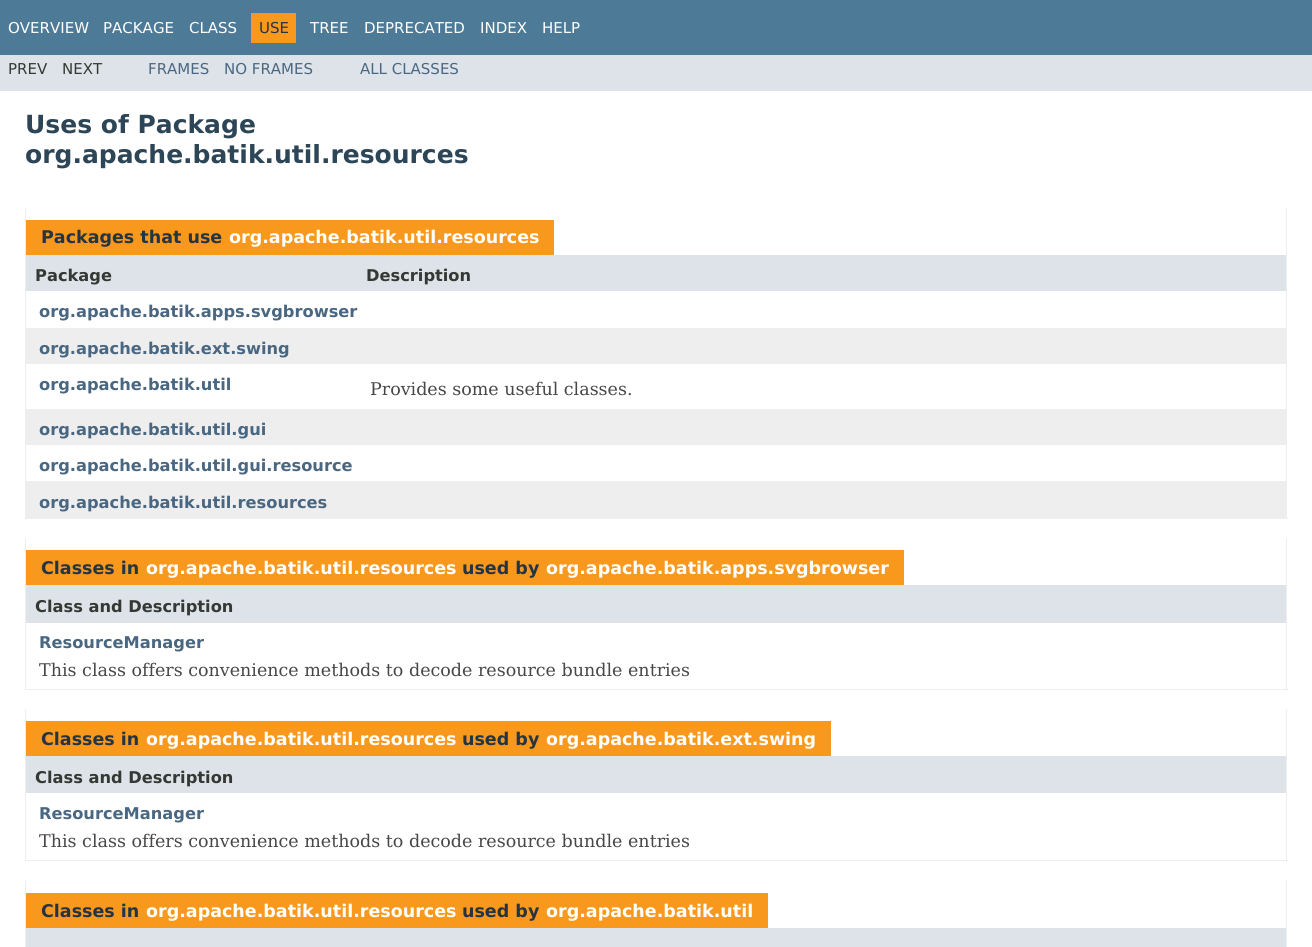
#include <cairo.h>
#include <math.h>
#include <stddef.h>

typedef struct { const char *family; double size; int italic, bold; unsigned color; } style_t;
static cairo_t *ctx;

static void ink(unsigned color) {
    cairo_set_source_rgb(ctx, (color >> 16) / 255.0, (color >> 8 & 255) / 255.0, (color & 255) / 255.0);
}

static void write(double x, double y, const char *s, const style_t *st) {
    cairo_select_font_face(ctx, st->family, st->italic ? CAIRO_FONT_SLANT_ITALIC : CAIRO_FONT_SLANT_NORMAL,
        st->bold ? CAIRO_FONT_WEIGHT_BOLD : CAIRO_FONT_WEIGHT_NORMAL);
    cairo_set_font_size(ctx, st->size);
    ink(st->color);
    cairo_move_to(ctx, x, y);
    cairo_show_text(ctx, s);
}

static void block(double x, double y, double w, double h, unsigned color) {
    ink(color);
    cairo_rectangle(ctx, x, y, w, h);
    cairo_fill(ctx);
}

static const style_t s1 = {"DejaVu Sans", 15, 0, 0, 0xffffff};
static const style_t s2 = {"DejaVu Sans", 15, 0, 0, 0x253441};
static const style_t s3 = {"DejaVu Sans", 15, 0, 0, 0x353833};
static const style_t s4 = {"DejaVu Sans", 15, 0, 0, 0x4a6782};
static const style_t s5 = {"DejaVu Sans", 25, 0, 1, 0x2c4557};
static const style_t s6 = {"DejaVu Sans", 17.5, 0, 1, 0x253441};
static const style_t s7 = {"DejaVu Sans", 17.5, 0, 1, 0xffffff};
static const style_t s8 = {"DejaVu Sans", 16.25, 0, 1, 0x353833};
static const style_t s9 = {"DejaVu Sans", 16.25, 0, 1, 0x4a6782};
static const style_t s10 = {"DejaVu Serif", 17.5, 0, 0, 0x474747};

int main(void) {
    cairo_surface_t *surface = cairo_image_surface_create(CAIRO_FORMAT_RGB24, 1312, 947);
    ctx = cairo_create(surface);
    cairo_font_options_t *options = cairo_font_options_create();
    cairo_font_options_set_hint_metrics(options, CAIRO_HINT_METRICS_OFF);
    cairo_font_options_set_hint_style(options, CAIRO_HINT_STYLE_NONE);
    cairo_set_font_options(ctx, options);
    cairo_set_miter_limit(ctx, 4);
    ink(0xffffff);
    cairo_paint(ctx);
    block(0, 0, 1312, 55, 0x4d7a97);
    write(8, 33, "OVERVIEW", &s1);
    write(103, 33, "PACKAGE", &s1);
    write(189, 33, "CLASS", &s1);
    block(251, 13, 45, 30, 0xf8981d);
    write(259, 33, "USE", &s2);
    write(310, 33, "TREE", &s1);
    write(364, 33, "DEPRECATED", &s1);
    write(480, 33, "INDEX", &s1);
    write(542, 33, "HELP", &s1);
    block(0, 55, 1312, 36, 0xdee3e9);
    write(8, 74, "PREV", &s3);
    write(62, 74, "NEXT", &s3);
    write(148, 74, "FRAMES", &s4);
    write(224, 74, "NO FRAMES", &s4);
    write(360, 74, "ALL CLASSES", &s4);
    write(25, 133, "Uses of Package", &s5);
    write(25, 163, "org.apache.batik.util.resources", &s5);
    block(1286, 208, 1, 311, 0xeeeeee);
    block(25, 518, 1263, 1, 0xeeeeee);
    block(25, 208, 1, 311, 0xeeeeee);
    block(26, 220, 528, 35, 0xf8981d);
    write(41, 243, "Packages that use", &s6);
    write(229, 243, "org.apache.batik.util.resources", &s7);
    block(26, 255, 1260, 36, 0xdee3e9);
    write(35, 281, "Package", &s8);
    write(366, 281, "Description", &s8);
    write(39, 317, "org.apache.batik.apps.svgbrowser", &s9);
    block(26, 328, 1260, 36, 0xeeeeef);
    write(39, 354, "org.apache.batik.ext.swing", &s9);
    write(39, 390, "org.apache.batik.util", &s9);
    write(370, 395, "Provides some useful classes.", &s10);
    block(26, 409, 1260, 36, 0xeeeeef);
    write(39, 435, "org.apache.batik.util.gui", &s9);
    write(39, 471, "org.apache.batik.util.gui.resource", &s9);
    block(26, 481, 1260, 37, 0xeeeeef);
    write(39, 508, "org.apache.batik.util.resources", &s9);
    block(1286, 538, 1, 152, 0xeeeeee);
    block(25, 689, 1263, 1, 0xeeeeee);
    block(25, 538, 1, 152, 0xeeeeee);
    block(26, 550, 878, 35, 0xf8981d);
    write(41, 574, "Classes in", &s6);
    write(146, 574, "org.apache.batik.util.resources", &s7);
    write(462, 574, "used by", &s6);
    write(546, 574, "org.apache.batik.apps.svgbrowser", &s7);
    block(26, 585, 1260, 38, 0xdee3e9);
    write(35, 612, "Class and Description", &s8);
    write(39, 648, "ResourceManager", &s9);
    write(39, 676, "This class offers convenience methods to decode resource bundle entries", &s10);
    block(1286, 709, 1, 152, 0xeeeeee);
    block(25, 860, 1263, 1, 0xeeeeee);
    block(25, 709, 1, 152, 0xeeeeee);
    block(26, 721, 805, 35, 0xf8981d);
    write(41, 745, "Classes in", &s6);
    write(146, 745, "org.apache.batik.util.resources", &s7);
    write(462, 745, "used by", &s6);
    write(546, 745, "org.apache.batik.ext.swing", &s7);
    block(26, 756, 1260, 37, 0xdee3e9);
    write(35, 783, "Class and Description", &s8);
    write(39, 819, "ResourceManager", &s9);
    write(39, 847, "This class offers convenience methods to decode resource bundle entries", &s10);
    block(1286, 880, 1, 67, 0xeeeeee);
    block(25, 880, 1, 67, 0xeeeeee);
    block(26, 893, 742, 35, 0xf8981d);
    write(41, 917, "Classes in", &s6);
    write(146, 917, "org.apache.batik.util.resources", &s7);
    write(462, 917, "used by", &s6);
    write(546, 917, "org.apache.batik.util", &s7);
    block(26, 928, 1260, 19, 0xdee3e9);
    cairo_surface_write_to_png(surface, "screenshot.png");
    cairo_font_options_destroy(options);
    cairo_destroy(ctx);
    cairo_surface_destroy(surface);
    return 0;
}
